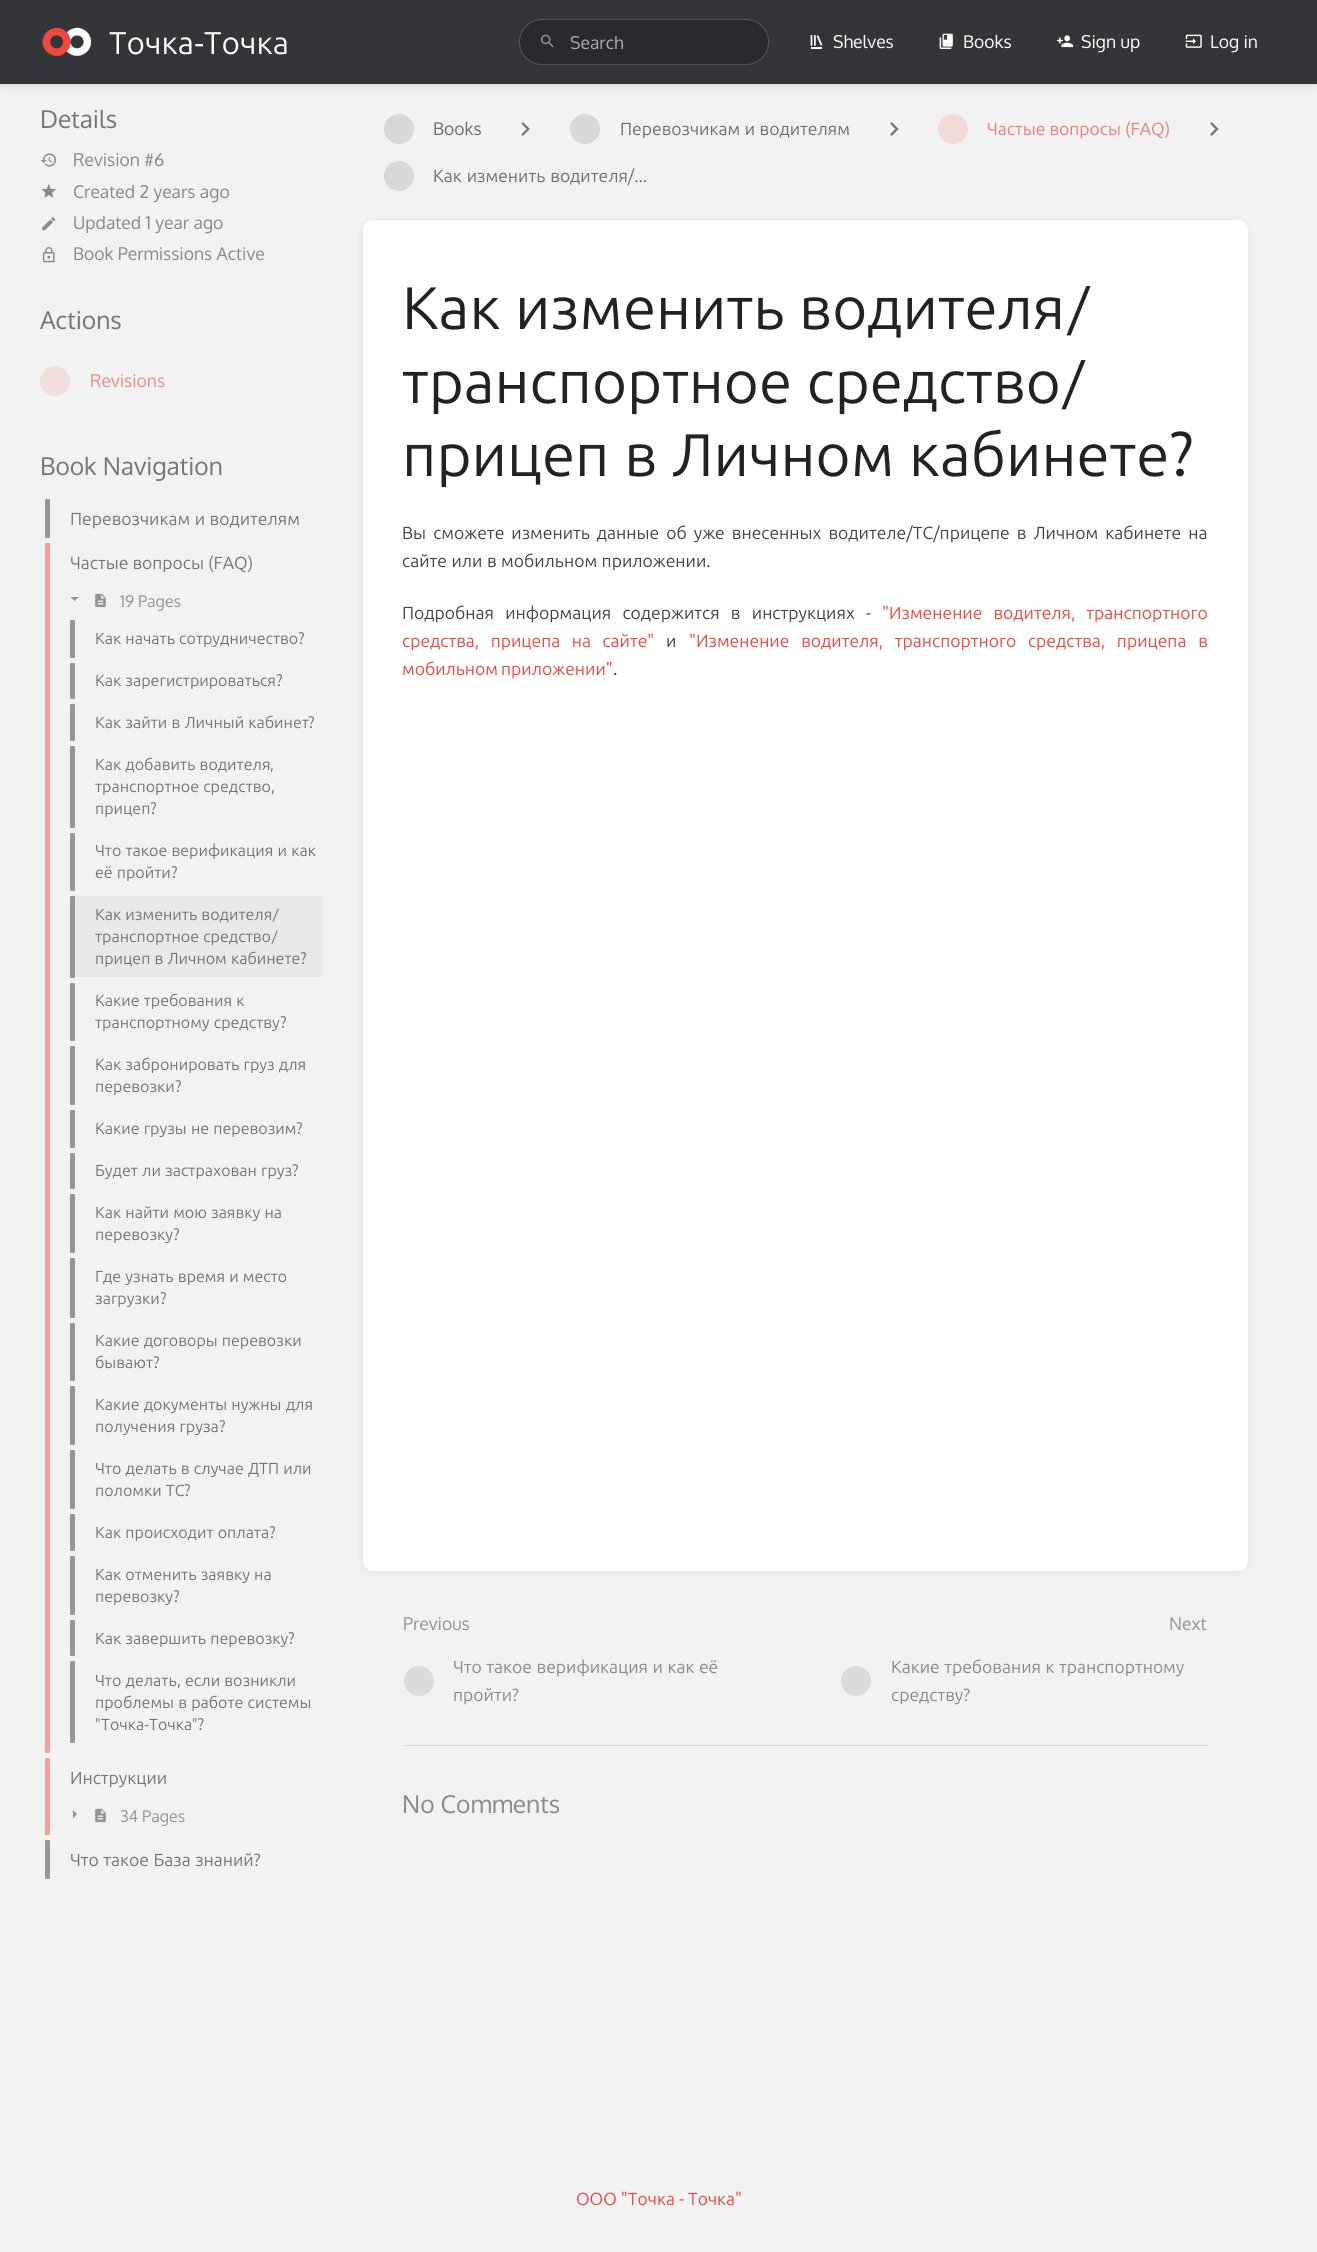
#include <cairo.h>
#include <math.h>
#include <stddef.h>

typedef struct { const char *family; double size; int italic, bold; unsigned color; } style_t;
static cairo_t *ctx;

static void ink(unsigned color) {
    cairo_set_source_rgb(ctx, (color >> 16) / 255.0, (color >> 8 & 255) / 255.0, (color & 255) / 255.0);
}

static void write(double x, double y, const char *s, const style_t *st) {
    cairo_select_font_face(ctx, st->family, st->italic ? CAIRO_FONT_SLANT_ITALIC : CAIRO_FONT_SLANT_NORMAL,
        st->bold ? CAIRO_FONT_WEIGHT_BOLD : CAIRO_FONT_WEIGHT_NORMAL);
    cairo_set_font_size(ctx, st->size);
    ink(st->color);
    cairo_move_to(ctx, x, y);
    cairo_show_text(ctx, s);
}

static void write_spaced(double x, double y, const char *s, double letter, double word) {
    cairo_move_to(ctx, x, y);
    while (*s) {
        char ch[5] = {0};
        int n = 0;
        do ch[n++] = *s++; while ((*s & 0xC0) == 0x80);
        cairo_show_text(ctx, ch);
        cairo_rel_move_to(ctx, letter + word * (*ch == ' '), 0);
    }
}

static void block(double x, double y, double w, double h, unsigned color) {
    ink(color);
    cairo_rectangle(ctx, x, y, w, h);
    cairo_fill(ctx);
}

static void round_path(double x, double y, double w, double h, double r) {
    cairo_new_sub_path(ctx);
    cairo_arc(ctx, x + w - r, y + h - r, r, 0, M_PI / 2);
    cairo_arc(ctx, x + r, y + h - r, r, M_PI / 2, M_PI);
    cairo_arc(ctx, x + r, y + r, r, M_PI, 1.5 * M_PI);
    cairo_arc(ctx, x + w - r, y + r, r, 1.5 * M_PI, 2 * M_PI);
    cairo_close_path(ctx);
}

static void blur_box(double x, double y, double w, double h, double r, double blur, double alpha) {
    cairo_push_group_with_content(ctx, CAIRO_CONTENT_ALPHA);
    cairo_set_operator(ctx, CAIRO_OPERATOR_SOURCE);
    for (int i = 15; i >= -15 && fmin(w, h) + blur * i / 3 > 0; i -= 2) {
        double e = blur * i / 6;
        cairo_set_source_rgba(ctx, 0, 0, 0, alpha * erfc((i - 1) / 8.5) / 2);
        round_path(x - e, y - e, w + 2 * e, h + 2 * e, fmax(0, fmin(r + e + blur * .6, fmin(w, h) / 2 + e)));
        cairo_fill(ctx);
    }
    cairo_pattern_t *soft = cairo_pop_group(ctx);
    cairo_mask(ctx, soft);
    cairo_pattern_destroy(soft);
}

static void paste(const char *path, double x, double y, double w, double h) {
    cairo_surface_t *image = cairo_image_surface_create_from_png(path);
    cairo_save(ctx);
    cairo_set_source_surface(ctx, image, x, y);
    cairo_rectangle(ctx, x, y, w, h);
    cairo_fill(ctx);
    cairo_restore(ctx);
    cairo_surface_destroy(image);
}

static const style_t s1 = {"Ubuntu", 31.5, 0, 0, 0xffffff};
static const style_t s2 = {"Oxygen", 31.5, 0, 0, 0xffffff};
static const style_t s3 = {"Oxygen", 17.5, 0, 0, 0xaaaaab};
static const style_t s4 = {"Oxygen", 17.5, 0, 0, 0xffffff};
static const style_t s5 = {"Oxygen", 24.5, 0, 0, 0x757575};
static const style_t s6 = {"Oxygen", 17.5, 0, 0, 0x8a8a8a};
static const style_t s7 = {"Oxygen", 17.5, 0, 0, 0xf08c86};
static const style_t s8 = {"Ubuntu", 17.5, 0, 0, 0x757575};
static const style_t s9 = {"Oxygen", 16, 0, 0, 0x959595};
static const style_t s10 = {"Oxygen", 16, 0, 0, 0x757575};
static const style_t s11 = {"Ubuntu", 16, 0, 0, 0x757575};
static const style_t s12 = {"Oxygen", 17.5, 0, 0, 0x6d6e71};
static const style_t s13 = {"Ubuntu", 17.5, 0, 0, 0xf07b74};
static const style_t s14 = {"Oxygen", 60, 0, 0, 0x222222};
static const style_t s15 = {"Ubuntu", 17.5, 0, 0, 0x444444};
static const style_t s16 = {"Oxygen", 17.5, 0, 0, 0x444444};
static const style_t s17 = {"Oxygen", 17.5, 0, 0, 0x959595};
static const style_t s18 = {"Ubuntu", 17.5, 0, 0, 0x8a8a8a};
static const style_t s19 = {"Oxygen", 24.5, 0, 0, 0x8a8a8a};
static const style_t s20 = {"Ubuntu", 17.5, 0, 0, 0xef483e};

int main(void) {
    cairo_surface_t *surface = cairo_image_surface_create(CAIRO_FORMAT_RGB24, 1317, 2252);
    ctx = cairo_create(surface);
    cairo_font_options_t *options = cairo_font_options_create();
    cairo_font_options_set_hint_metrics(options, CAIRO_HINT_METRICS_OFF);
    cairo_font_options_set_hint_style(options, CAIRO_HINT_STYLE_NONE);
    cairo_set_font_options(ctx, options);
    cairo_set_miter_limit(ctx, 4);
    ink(0xf2f2f2);
    cairo_paint(ctx);
    ink(0x000000);
    blur_box(1, 3, 1315, 82, 0, 4, 0.1);
    block(0, 0, 1317, 84, 0x343539);
    block(0, 84, 1317, 1, 0xdddddd);
    paste("pic1.png", 42, 27, 50, 30);
    write(109, 54, "Точка", &s1);
    write(194, 54, "-", &s2);
    write(204, 54, "Точка", &s1);
    ink(0x2a2a2e);
    round_path(519, 19, 250, 46, 23);
    cairo_fill(ctx);
    round_path(519.5, 19.5, 249, 45, 22.5);
    cairo_set_source_rgba(ctx, 1, 1, 1, 0.2);
    cairo_set_line_width(ctx, 1);
    cairo_stroke(ctx);
    paste("pic2.png", 541, 34, 13, 14);
    write(570, 49, "Search", &s3);
    paste("pic3.png", 810, 35, 13, 14);
    write(833, 48, "Shelves", &s4);
    paste("pic4.png", 939, 33, 14, 16);
    write(963, 48, "Books", &s4);
    paste("pic5.png", 1057, 35, 16, 13);
    write(1081, 48, "Sign up", &s4);
    paste("pic6.png", 1185, 34, 17, 14);
    write(1210, 48, "Log in", &s4);
    write(40, 128, "Details", &s5);
    paste("pic7.png", 41, 153, 15, 14);
    write(73, 166, "Revision #6", &s6);
    paste("pic8.png", 41, 184, 15, 14);
    write(73, 198, "Created 2 years ago", &s6);
    paste("pic9.png", 42, 217, 14, 14);
    write(73, 229, "Updated 1 year ago", &s6);
    paste("pic10.png", 42, 247, 13, 16);
    write(73, 260, "Book Permissions Active", &s6);
    write(40, 329, "Actions", &s5);
    ink(0xf2dedc);
    cairo_new_path(ctx);
    cairo_arc(ctx, 55, 381, 15, 0, 2 * M_PI);
    cairo_fill(ctx);
    write(90, 387, "Revisions", &s7);
    write(40, 475, "Book Navigation", &s5);
    ink(0x979799);
    round_path(45, 499, 5, 39, 1);
    cairo_fill(ctx);
    cairo_select_font_face(ctx, "Ubuntu", CAIRO_FONT_SLANT_NORMAL, CAIRO_FONT_WEIGHT_NORMAL);
    cairo_set_font_size(ctx, 17.5);
    ink(0x757575);
    write_spaced(70, 525, "Перевозчикам и водителям", 0, 0.5);
    ink(0xf1a09c);
    round_path(45, 543, 5, 40, 1);
    cairo_fill(ctx);
    write(70, 569, "Частые вопросы (FAQ)", &s8);
    ink(0xf1a09c);
    round_path(45, 580, 5, 1173, 1);
    cairo_fill(ctx);
    ink(0x959595);
    cairo_new_path(ctx);
    cairo_move_to(ctx, 70.5, 597);
    cairo_line_to(ctx, 74.5, 601);
    cairo_line_to(ctx, 79, 597);
    cairo_close_path(ctx);
    cairo_fill(ctx);
    paste("pic11.png", 95, 593, 11, 15);
    write(120, 607, "19 Pages", &s9);
    ink(0x979799);
    round_path(70, 620, 5, 38, 1);
    cairo_fill(ctx);
    cairo_select_font_face(ctx, "Ubuntu", CAIRO_FONT_SLANT_NORMAL, CAIRO_FONT_WEIGHT_NORMAL);
    ink(0x757575);
    write_spaced(95, 644, "Как начать сотрудничество", 0, 0.5);
    write(298, 644, "?", &s10);
    ink(0x979799);
    round_path(70, 663, 5, 36, 1);
    cairo_fill(ctx);
    cairo_select_font_face(ctx, "Ubuntu", CAIRO_FONT_SLANT_NORMAL, CAIRO_FONT_WEIGHT_NORMAL);
    ink(0x757575);
    write_spaced(95, 686, "Как зарегистрироваться", 0, 0.5);
    write(276, 686, "?", &s10);
    ink(0x979799);
    round_path(70, 704, 5, 37, 1);
    cairo_fill(ctx);
    cairo_select_font_face(ctx, "Ubuntu", CAIRO_FONT_SLANT_NORMAL, CAIRO_FONT_WEIGHT_NORMAL);
    ink(0x757575);
    write_spaced(95, 728, "Как зайти в Личный кабинет", 0, 0.5);
    write(308, 728, "?", &s10);
    ink(0x979799);
    round_path(70, 746, 5, 82, 1);
    cairo_fill(ctx);
    cairo_select_font_face(ctx, "Ubuntu", CAIRO_FONT_SLANT_NORMAL, CAIRO_FONT_WEIGHT_NORMAL);
    ink(0x757575);
    write_spaced(95, 770, "Как добавить водителя", 0, 0.5);
    write(270, 770, ",", &s10);
    cairo_select_font_face(ctx, "Ubuntu", CAIRO_FONT_SLANT_NORMAL, CAIRO_FONT_WEIGHT_NORMAL);
    write_spaced(95, 792, "транспортное средство", 0, 0.5);
    write(271, 792, ",", &s10);
    write(95, 814, "прицеп", &s11);
    write(150, 814, "?", &s10);
    ink(0x979799);
    round_path(70, 833, 5, 58, 1);
    cairo_fill(ctx);
    cairo_select_font_face(ctx, "Ubuntu", CAIRO_FONT_SLANT_NORMAL, CAIRO_FONT_WEIGHT_NORMAL);
    ink(0x757575);
    write_spaced(95, 856, "Что такое верификация и как", 0, 0.5);
    write_spaced(95, 878, "её пройти", 0, 0.5);
    write(171, 878, "?", &s10);
    cairo_save(ctx);
    cairo_rectangle(ctx, 40, 85, 283, 1836);
    cairo_clip(ctx);
    ink(0xe9e9e9);
    cairo_new_path(ctx);
    cairo_move_to(ctx, 70, 896);
    cairo_line_to(ctx, 333, 896);
    cairo_curve_to(ctx, 335, 896, 337, 897, 337, 897);
    cairo_line_to(ctx, 337, 976);
    cairo_curve_to(ctx, 337, 976, 335, 977, 333, 977);
    cairo_line_to(ctx, 70, 977);
    cairo_close_path(ctx);
    cairo_fill(ctx);
    cairo_restore(ctx);
    ink(0x979799);
    round_path(70, 896, 5, 82, 1);
    cairo_fill(ctx);
    cairo_select_font_face(ctx, "Ubuntu", CAIRO_FONT_SLANT_NORMAL, CAIRO_FONT_WEIGHT_NORMAL);
    ink(0x757575);
    write_spaced(95, 920, "Как изменить водителя", 0, 0.5);
    write(272, 920, "/", &s10);
    cairo_select_font_face(ctx, "Ubuntu", CAIRO_FONT_SLANT_NORMAL, CAIRO_FONT_WEIGHT_NORMAL);
    write_spaced(95, 942, "транспортное средство", 0, 0.5);
    write(271, 942, "/", &s10);
    cairo_select_font_face(ctx, "Ubuntu", CAIRO_FONT_SLANT_NORMAL, CAIRO_FONT_WEIGHT_NORMAL);
    write_spaced(95, 964, "прицеп в Личном кабинете", 0, 0.5);
    write(300, 964, "?", &s10);
    ink(0x979799);
    round_path(70, 983, 5, 58, 1);
    cairo_fill(ctx);
    cairo_select_font_face(ctx, "Ubuntu", CAIRO_FONT_SLANT_NORMAL, CAIRO_FONT_WEIGHT_NORMAL);
    ink(0x757575);
    write_spaced(95, 1006, "Какие требования к", 0, 0.5);
    write_spaced(95, 1028, "транспортному средству", 0, 0.5);
    write(280, 1028, "?", &s10);
    ink(0x979799);
    round_path(70, 1046, 5, 59, 1);
    cairo_fill(ctx);
    cairo_select_font_face(ctx, "Ubuntu", CAIRO_FONT_SLANT_NORMAL, CAIRO_FONT_WEIGHT_NORMAL);
    ink(0x757575);
    write_spaced(95, 1070, "Как забронировать груз для", 0, 0.5);
    write(95, 1092, "перевозки", &s11);
    write(175, 1092, "?", &s10);
    ink(0x979799);
    round_path(70, 1110, 5, 38, 1);
    cairo_fill(ctx);
    cairo_select_font_face(ctx, "Ubuntu", CAIRO_FONT_SLANT_NORMAL, CAIRO_FONT_WEIGHT_NORMAL);
    ink(0x757575);
    write_spaced(95, 1134, "Какие грузы не перевозим", 0, 0.5);
    write(296, 1134, "?", &s10);
    ink(0x979799);
    round_path(70, 1153, 5, 36, 1);
    cairo_fill(ctx);
    cairo_select_font_face(ctx, "Ubuntu", CAIRO_FONT_SLANT_NORMAL, CAIRO_FONT_WEIGHT_NORMAL);
    ink(0x757575);
    write_spaced(95, 1176, "Будет ли застрахован груз", 0, 0.5);
    write(292, 1176, "?", &s10);
    ink(0x979799);
    round_path(70, 1194, 5, 59, 1);
    cairo_fill(ctx);
    cairo_select_font_face(ctx, "Ubuntu", CAIRO_FONT_SLANT_NORMAL, CAIRO_FONT_WEIGHT_NORMAL);
    ink(0x757575);
    write_spaced(95, 1218, "Как найти мою заявку на", 0, 0.5);
    write(95, 1240, "перевозку", &s11);
    write(173, 1240, "?", &s10);
    ink(0x979799);
    round_path(70, 1258, 5, 60, 1);
    cairo_fill(ctx);
    cairo_select_font_face(ctx, "Ubuntu", CAIRO_FONT_SLANT_NORMAL, CAIRO_FONT_WEIGHT_NORMAL);
    ink(0x757575);
    write_spaced(95, 1282, "Где узнать время и место", 0, 0.5);
    write(95, 1304, "загрузки", &s11);
    write(160, 1304, "?", &s10);
    ink(0x979799);
    round_path(70, 1323, 5, 58, 1);
    cairo_fill(ctx);
    cairo_select_font_face(ctx, "Ubuntu", CAIRO_FONT_SLANT_NORMAL, CAIRO_FONT_WEIGHT_NORMAL);
    ink(0x757575);
    write_spaced(95, 1346, "Какие договоры перевозки", 0, 0.5);
    write(95, 1368, "бывают", &s11);
    write(153, 1368, "?", &s10);
    ink(0x979799);
    round_path(70, 1386, 5, 59, 1);
    cairo_fill(ctx);
    cairo_select_font_face(ctx, "Ubuntu", CAIRO_FONT_SLANT_NORMAL, CAIRO_FONT_WEIGHT_NORMAL);
    ink(0x757575);
    write_spaced(95, 1410, "Какие документы нужны для", 0, 0.5);
    write_spaced(95, 1432, "получения груза", 0, 0.5);
    write(219, 1432, "?", &s10);
    ink(0x979799);
    round_path(70, 1450, 5, 59, 1);
    cairo_fill(ctx);
    cairo_select_font_face(ctx, "Ubuntu", CAIRO_FONT_SLANT_NORMAL, CAIRO_FONT_WEIGHT_NORMAL);
    ink(0x757575);
    write_spaced(95, 1474, "Что делать в случае ДТП или", 0, 0.5);
    write_spaced(95, 1496, "поломки ТС", 0, 0.5);
    write(184, 1496, "?", &s10);
    ink(0x979799);
    round_path(70, 1514, 5, 37, 1);
    cairo_fill(ctx);
    cairo_select_font_face(ctx, "Ubuntu", CAIRO_FONT_SLANT_NORMAL, CAIRO_FONT_WEIGHT_NORMAL);
    ink(0x757575);
    write_spaced(95, 1538, "Как происходит оплата", 0, 0.5);
    write(269, 1538, "?", &s10);
    ink(0x979799);
    round_path(70, 1556, 5, 59, 1);
    cairo_fill(ctx);
    cairo_select_font_face(ctx, "Ubuntu", CAIRO_FONT_SLANT_NORMAL, CAIRO_FONT_WEIGHT_NORMAL);
    ink(0x757575);
    write_spaced(95, 1580, "Как отменить заявку на", 0, 0.5);
    write(95, 1602, "перевозку", &s11);
    write(173, 1602, "?", &s10);
    ink(0x979799);
    round_path(70, 1620, 5, 36, 1);
    cairo_fill(ctx);
    cairo_select_font_face(ctx, "Ubuntu", CAIRO_FONT_SLANT_NORMAL, CAIRO_FONT_WEIGHT_NORMAL);
    ink(0x757575);
    write_spaced(95, 1644, "Как завершить перевозку", 0, 0.5);
    write(288, 1644, "?", &s10);
    ink(0x979799);
    round_path(70, 1661, 5, 82, 1);
    cairo_fill(ctx);
    cairo_select_font_face(ctx, "Ubuntu", CAIRO_FONT_SLANT_NORMAL, CAIRO_FONT_WEIGHT_NORMAL);
    ink(0x757575);
    write_spaced(95, 1686, "Что делать", 0, 0.5);
    write(177, 1686, ",", &s10);
    cairo_select_font_face(ctx, "Ubuntu", CAIRO_FONT_SLANT_NORMAL, CAIRO_FONT_WEIGHT_NORMAL);
    write_spaced(185, 1686, "если возникли", 0, 0.5);
    write_spaced(95, 1708, "проблемы в работе системы", 0, 0.5);
    write(95, 1730, "\"", &s10);
    write(101, 1730, "Точка", &s11);
    write(144, 1730, "-", &s10);
    write(149, 1730, "Точка", &s11);
    write(192, 1730, "\"?", &s10);
    ink(0xf1a09c);
    round_path(45, 1758, 5, 40, 1);
    cairo_fill(ctx);
    write(70, 1784, "Инструкции", &s8);
    ink(0xf1a09c);
    round_path(45, 1795, 5, 40, 1);
    cairo_fill(ctx);
    ink(0x959595);
    cairo_new_path(ctx);
    cairo_move_to(ctx, 73, 1818.5);
    cairo_line_to(ctx, 77, 1814);
    cairo_line_to(ctx, 73, 1810);
    cairo_close_path(ctx);
    cairo_fill(ctx);
    paste("pic11.png", 95, 1808, 11, 15);
    write(120, 1822, "34 Pages", &s9);
    ink(0x979799);
    round_path(45, 1840, 5, 39, 1);
    cairo_fill(ctx);
    cairo_select_font_face(ctx, "Ubuntu", CAIRO_FONT_SLANT_NORMAL, CAIRO_FONT_WEIGHT_NORMAL);
    cairo_set_font_size(ctx, 17.5);
    ink(0x757575);
    write_spaced(70, 1866, "Что такое База знаний?", 0, 0.5);
    ink(0xd7d8d8);
    cairo_new_path(ctx);
    cairo_arc(ctx, 399, 129, 15, 0, 2 * M_PI);
    cairo_fill(ctx);
    write(433, 135, "Books", &s12);
    paste("pic12.png", 521, 122, 9, 14);
    ink(0xd7d8d8);
    cairo_arc(ctx, 585, 129, 15, 0, 2 * M_PI);
    cairo_fill(ctx);
    cairo_select_font_face(ctx, "Ubuntu", CAIRO_FONT_SLANT_NORMAL, CAIRO_FONT_WEIGHT_NORMAL);
    ink(0x6d6e71);
    write_spaced(620, 135, "Перевозчикам и водителям", 0, 0.5);
    paste("pic13.png", 890, 122, 9, 14);
    ink(0xf2dad9);
    cairo_arc(ctx, 953, 129, 15, 0, 2 * M_PI);
    cairo_fill(ctx);
    write(987, 135, "Частые вопросы (FAQ)", &s13);
    paste("pic13.png", 1210, 122, 9, 14);
    ink(0xd7d8d8);
    cairo_arc(ctx, 399, 176, 15, 0, 2 * M_PI);
    cairo_fill(ctx);
    ink(0x6d6e71);
    write_spaced(433, 182, "Как изменить водителя/...", 0, 1);
    ink(0x000000);
    blur_box(364, 223, 882, 1348, 9, 4, 0.1);
    ink(0xffffff);
    round_path(363, 220, 885, 1351, 10);
    cairo_fill(ctx);
    cairo_set_font_size(ctx, 60);
    ink(0x222222);
    write_spaced(402, 329, "Как изменить водителя", 0, 1);
    write(1065, 329, "/", &s14);
    cairo_select_font_face(ctx, "Ubuntu", CAIRO_FONT_SLANT_NORMAL, CAIRO_FONT_WEIGHT_NORMAL);
    write_spaced(402, 403, "транспортное средство", 0, 1);
    write(1060, 403, "/", &s14);
    cairo_select_font_face(ctx, "Ubuntu", CAIRO_FONT_SLANT_NORMAL, CAIRO_FONT_WEIGHT_NORMAL);
    write_spaced(402, 476, "прицеп в Личном кабинете", 0, 1);
    write(1169, 476, "?", &s14);
    cairo_select_font_face(ctx, "Ubuntu", CAIRO_FONT_SLANT_NORMAL, CAIRO_FONT_WEIGHT_NORMAL);
    cairo_set_font_size(ctx, 17.5);
    ink(0x444444);
    write_spaced(402, 539, "Вы сможете изменить данные об уже внесенных водителе/ТС/прицепе в Личном кабинете на", 0, 3);
    write_spaced(402, 567, "сайте или в мобильном приложении.", 0, 0.5);
    write_spaced(402, 619, "Подробная информация содержится в инструкциях -", 0, 7.25);
    ink(0xef483e);
    write_spaced(882, 619, "\"Изменение водителя, транспортного", 0, 7);
    write_spaced(402, 647, "средства, прицепа на сайте\"", 0, 7.5);
    write(666, 647, "и", &s15);
    ink(0xef483e);
    write_spaced(689, 647, "\"Изменение водителя, транспортного средства, прицепа в", 0, 7.75);
    write_spaced(402, 675, "мобильном приложении\"", 0, -1);
    write(613, 675, ".", &s16);
    write(403, 1630, "Previous", &s17);
    ink(0xdbdbdc);
    cairo_new_path(ctx);
    cairo_arc(ctx, 419, 1681, 15, 0, 2 * M_PI);
    cairo_fill(ctx);
    cairo_select_font_face(ctx, "Ubuntu", CAIRO_FONT_SLANT_NORMAL, CAIRO_FONT_WEIGHT_NORMAL);
    ink(0x8a8a8a);
    write_spaced(453, 1673, "Что такое верификация и как её", 0, 0.5);
    write(453, 1701, "пройти?", &s18);
    write(1169, 1630, "Next", &s17);
    ink(0xdbdbdc);
    cairo_new_path(ctx);
    cairo_arc(ctx, 856, 1681, 15, 0, 2 * M_PI);
    cairo_fill(ctx);
    cairo_select_font_face(ctx, "Ubuntu", CAIRO_FONT_SLANT_NORMAL, CAIRO_FONT_WEIGHT_NORMAL);
    ink(0x8a8a8a);
    write_spaced(891, 1673, "Какие требования к транспортному", 0, 0.5);
    write(891, 1701, "средству?", &s18);
    block(403, 1745, 805, 1, 0xdddddd);
    write(402, 1813, "No Comments", &s19);
    write(576, 2205, "ООО \"Точка - Точка\"", &s20);
    cairo_surface_write_to_png(surface, "screenshot.png");
    cairo_font_options_destroy(options);
    cairo_destroy(ctx);
    cairo_surface_destroy(surface);
    return 0;
}
